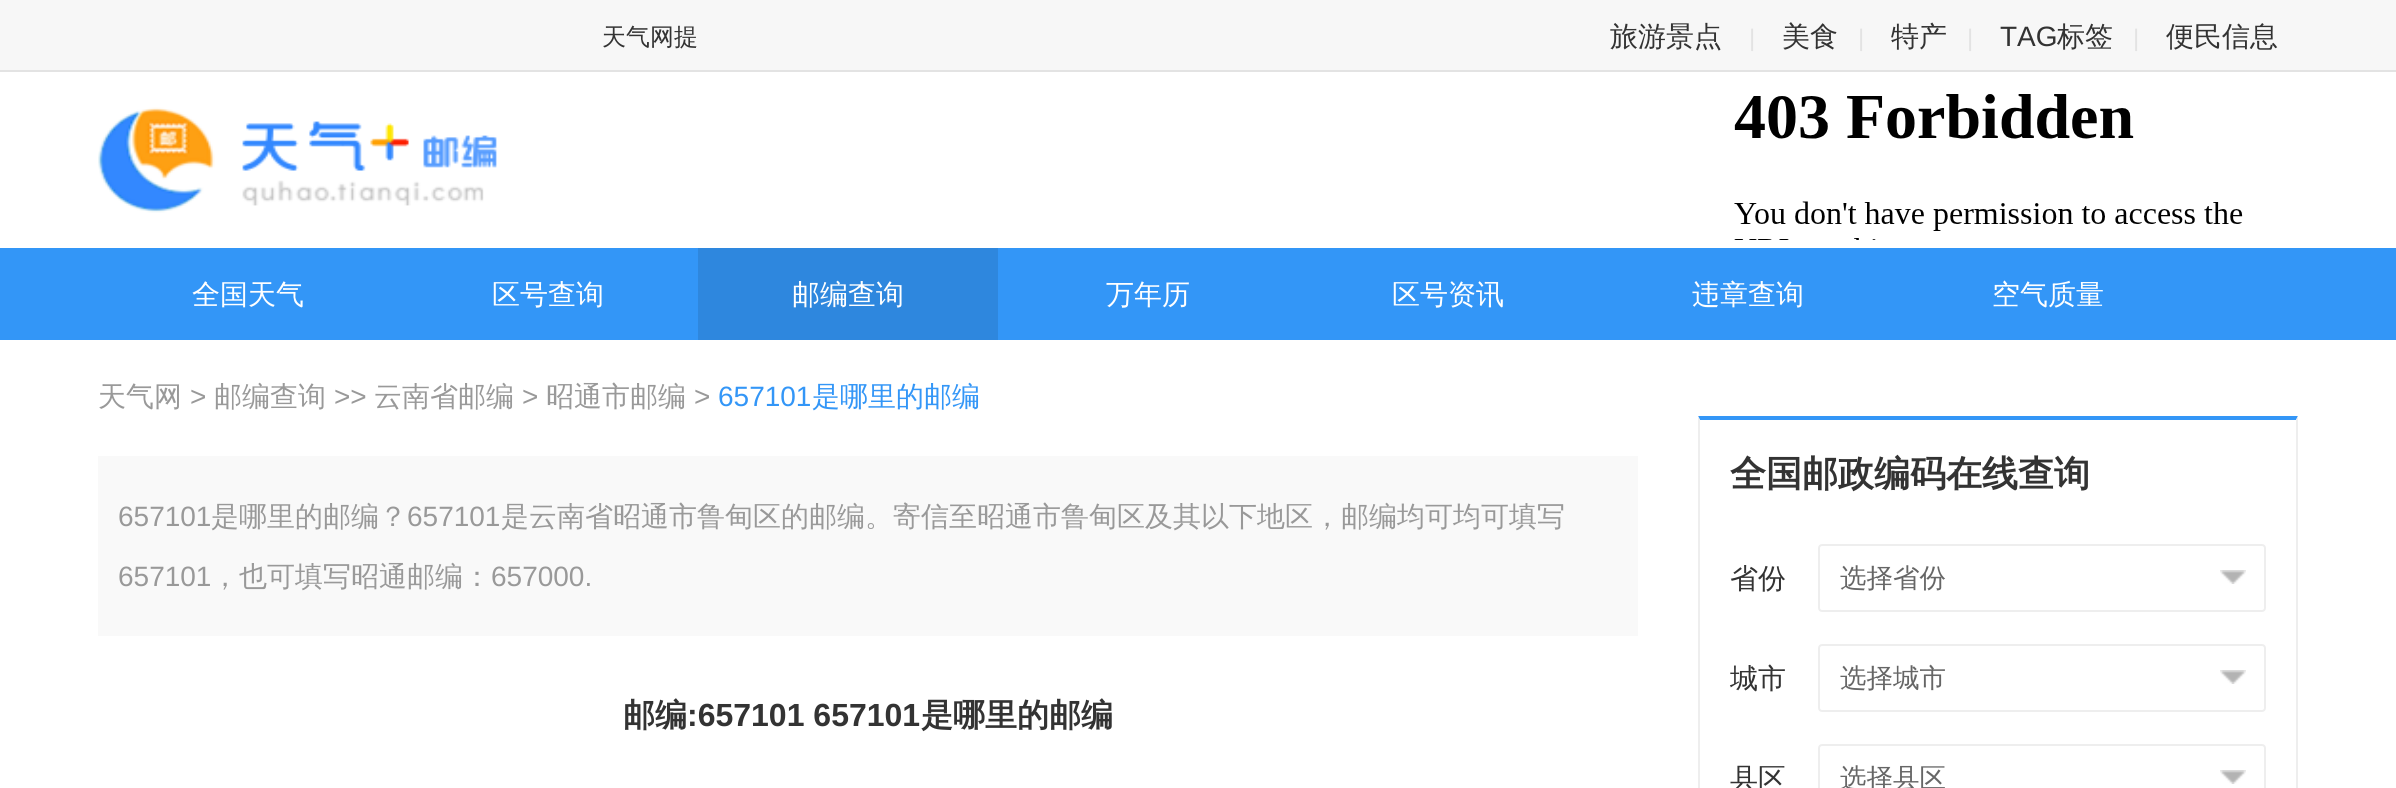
#include <cairo.h>
#include <math.h>
#include <stddef.h>

typedef struct { const char *family; double size; int italic, bold; unsigned color; } style_t;
static cairo_t *ctx;

static void ink(unsigned color) {
    cairo_set_source_rgb(ctx, (color >> 16) / 255.0, (color >> 8 & 255) / 255.0, (color & 255) / 255.0);
}

static void write(double x, double y, const char *s, const style_t *st) {
    cairo_select_font_face(ctx, st->family, st->italic ? CAIRO_FONT_SLANT_ITALIC : CAIRO_FONT_SLANT_NORMAL,
        st->bold ? CAIRO_FONT_WEIGHT_BOLD : CAIRO_FONT_WEIGHT_NORMAL);
    cairo_set_font_size(ctx, st->size);
    ink(st->color);
    cairo_move_to(ctx, x, y);
    cairo_show_text(ctx, s);
}

static void block(double x, double y, double w, double h, unsigned color) {
    ink(color);
    cairo_rectangle(ctx, x, y, w, h);
    cairo_fill(ctx);
}

static void round_path(double x, double y, double w, double h, double r) {
    cairo_new_sub_path(ctx);
    cairo_arc(ctx, x + w - r, y + h - r, r, 0, M_PI / 2);
    cairo_arc(ctx, x + r, y + h - r, r, M_PI / 2, M_PI);
    cairo_arc(ctx, x + r, y + r, r, M_PI, 1.5 * M_PI);
    cairo_arc(ctx, x + w - r, y + r, r, 1.5 * M_PI, 2 * M_PI);
    cairo_close_path(ctx);
}

static void paste(const char *path, double x, double y, double w, double h) {
    cairo_surface_t *image = cairo_image_surface_create_from_png(path);
    cairo_save(ctx);
    cairo_set_source_surface(ctx, image, x, y);
    cairo_rectangle(ctx, x, y, w, h);
    cairo_fill(ctx);
    cairo_restore(ctx);
    cairo_surface_destroy(image);
}

static const style_t s1 = {"WenQuanYi Zen Hei Medium", 24, 0, 0, 0x333333};
static const style_t s2 = {"WenQuanYi Zen Hei Medium", 28, 0, 0, 0x333333};
static const style_t s3 = {"Liberation Sans", 24, 0, 0, 0xe3e3e3};
static const style_t s4 = {"Liberation Sans", 28, 0, 0, 0x333333};
static const style_t s5 = {"WenQuanYi Zen Hei Medium", 28, 0, 0, 0xffffff};
static const style_t s6 = {"WenQuanYi Zen Hei Medium", 28, 0, 0, 0x999999};
static const style_t s7 = {"Liberation Sans", 28, 0, 0, 0x999999};
static const style_t s8 = {"Liberation Sans", 28, 0, 0, 0x3396f7};
static const style_t s9 = {"WenQuanYi Zen Hei Medium", 28, 0, 0, 0x3396f7};
static const style_t s10 = {"WenQuanYi Zen Hei", 32, 0, 1, 0x333333};
static const style_t s11 = {"Liberation Sans", 32, 0, 1, 0x333333};
static const style_t s12 = {"WenQuanYi Zen Hei", 36, 0, 1, 0x333333};
static const style_t s13 = {"WenQuanYi Zen Hei Medium", 26.5, 0, 0, 0x666666};

int main(void) {
    cairo_surface_t *surface = cairo_image_surface_create(CAIRO_FORMAT_RGB24, 2396, 788);
    ctx = cairo_create(surface);
    cairo_font_options_t *options = cairo_font_options_create();
    cairo_font_options_set_hint_metrics(options, CAIRO_HINT_METRICS_OFF);
    cairo_font_options_set_hint_style(options, CAIRO_HINT_STYLE_NONE);
    cairo_set_font_options(ctx, options);
    cairo_set_miter_limit(ctx, 4);
    ink(0xffffff);
    cairo_paint(ctx);
    block(0, 0, 2396, 70, 0xf7f7f7);
    block(0, 70, 2396, 2, 0xe3e3e3);
    write(602, 45, "天气网提", &s1);
    write(1610, 46, "旅游景点", &s2);
    write(1749, 46, "|", &s3);
    write(1782, 46, "美食", &s2);
    write(1858, 46, "|", &s3);
    write(1891, 46, "特产", &s2);
    write(1967, 46, "|", &s3);
    write(2000, 46, "TAG", &s4);
    write(2057, 46, "标签", &s2);
    write(2133, 46, "|", &s3);
    write(2166, 46, "便民信息", &s2);
    paste("pic1.png", 98, 107, 399, 106);
    paste("pic2.png", 1734, 94, 509, 146);
    block(0, 248, 2396, 92, 0x3396f7);
    write(192, 304, "全国天气", &s5);
    write(492, 304, "区号查询", &s5);
    block(698, 248, 300, 92, 0x2e87de);
    write(792, 304, "邮编查询", &s5);
    write(1106, 304, "万年历", &s5);
    write(1392, 304, "区号资讯", &s5);
    write(1692, 304, "违章查询", &s5);
    write(1992, 304, "空气质量", &s5);
    write(98, 406, "天气网", &s6);
    write(190, 406, ">", &s7);
    write(214, 406, "邮编查询", &s6);
    write(334, 406, ">>", &s7);
    write(374, 406, "云南省邮编", &s6);
    write(522, 406, ">", &s7);
    write(546, 406, "昭通市邮编", &s6);
    write(694, 406, ">", &s7);
    write(718, 406, "657101", &s8);
    write(812, 406, "是哪里的邮编", &s9);
    block(98, 456, 1540, 180, 0xf9f9f9);
    write(118, 526, "657101", &s7);
    write(211, 526, "是哪里的邮编？", &s6);
    write(407, 526, "657101", &s7);
    write(501, 526, "是云南省昭通市鲁甸区的邮编。寄信至昭通市鲁甸区及其以下地区，邮编均可均可填写", &s6);
    write(118, 586, "657101", &s7);
    write(211, 586, "，也可填写昭通邮编：", &s6);
    write(491, 586, "657000.", &s7);
    write(623, 726, "邮编", &s10);
    write(687, 726, ":657101 657101", &s11);
    write(921, 726, "是哪里的邮编", &s10);
    ink(0x3396f7);
    cairo_new_path(ctx);
    cairo_move_to(ctx, 1698, 416);
    cairo_line_to(ctx, 2298, 416);
    cairo_line_to(ctx, 2296, 420);
    cairo_line_to(ctx, 1700, 420);
    cairo_close_path(ctx);
    cairo_fill(ctx);
    ink(0xeeeeee);
    cairo_new_path(ctx);
    cairo_move_to(ctx, 2298, 416);
    cairo_line_to(ctx, 2298, 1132);
    cairo_line_to(ctx, 2296, 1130);
    cairo_line_to(ctx, 2296, 420);
    cairo_close_path(ctx);
    cairo_fill(ctx);
    cairo_new_path(ctx);
    cairo_move_to(ctx, 1698, 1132);
    cairo_line_to(ctx, 1698, 416);
    cairo_line_to(ctx, 1700, 420);
    cairo_line_to(ctx, 1700, 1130);
    cairo_close_path(ctx);
    cairo_fill(ctx);
    write(1730, 486, "全国邮政编码在线查询", &s12);
    write(1730, 588, "省份", &s2);
    round_path(1819, 545, 446, 66, 3);
    ink(0xeeeeee);
    cairo_stroke(ctx);
    write(1840, 587, "选择省份", &s13);
    paste("pic3.png", 2220, 570, 26, 14);
    write(1730, 688, "城市", &s2);
    round_path(1819, 645, 446, 66, 3);
    ink(0xeeeeee);
    cairo_stroke(ctx);
    write(1840, 687, "选择城市", &s13);
    paste("pic3.png", 2220, 670, 26, 14);
    write(1730, 788, "县区", &s2);
    round_path(1819, 745, 446, 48, 3);
    ink(0xeeeeee);
    cairo_stroke(ctx);
    write(1840, 787, "选择县区", &s13);
    paste("pic3.png", 2220, 770, 26, 14);
    cairo_surface_write_to_png(surface, "screenshot.png");
    cairo_font_options_destroy(options);
    cairo_destroy(ctx);
    cairo_surface_destroy(surface);
    return 0;
}
